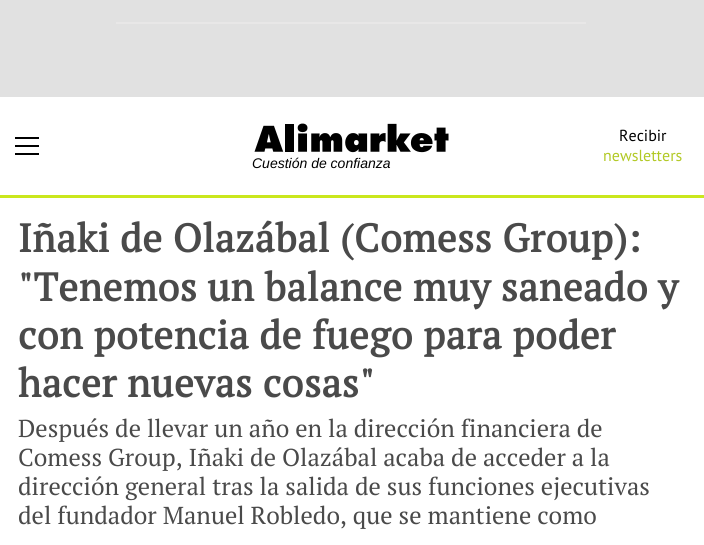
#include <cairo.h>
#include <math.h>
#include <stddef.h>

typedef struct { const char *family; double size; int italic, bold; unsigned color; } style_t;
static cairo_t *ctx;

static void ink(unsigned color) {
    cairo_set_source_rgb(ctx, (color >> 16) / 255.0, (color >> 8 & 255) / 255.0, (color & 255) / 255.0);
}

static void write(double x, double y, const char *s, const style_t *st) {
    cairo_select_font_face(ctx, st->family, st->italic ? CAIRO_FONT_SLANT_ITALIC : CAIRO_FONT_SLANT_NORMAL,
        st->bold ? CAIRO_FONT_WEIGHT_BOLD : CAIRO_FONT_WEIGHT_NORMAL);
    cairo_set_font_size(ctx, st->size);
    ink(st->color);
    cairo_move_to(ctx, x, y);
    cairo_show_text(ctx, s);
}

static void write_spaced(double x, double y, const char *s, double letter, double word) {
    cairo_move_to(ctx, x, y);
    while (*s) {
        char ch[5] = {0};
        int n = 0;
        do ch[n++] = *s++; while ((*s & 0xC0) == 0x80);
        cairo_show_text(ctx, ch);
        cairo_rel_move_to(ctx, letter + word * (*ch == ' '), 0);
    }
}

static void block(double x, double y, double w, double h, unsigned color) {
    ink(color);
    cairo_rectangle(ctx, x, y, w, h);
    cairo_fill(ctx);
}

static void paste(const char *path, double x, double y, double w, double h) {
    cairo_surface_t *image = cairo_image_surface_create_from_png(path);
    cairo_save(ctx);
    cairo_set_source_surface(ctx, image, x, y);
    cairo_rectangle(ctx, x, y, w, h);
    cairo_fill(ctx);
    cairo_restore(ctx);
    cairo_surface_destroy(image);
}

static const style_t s1 = {"PT Sans", 16, 0, 0, 0x000000};
static const style_t s2 = {"PT Sans", 16, 0, 0, 0xb2c925};
static const style_t s3 = {"Liberation Sans", 14, 1, 0, 0x000000};
static const style_t s4 = {"PT Serif", 24.5, 0, 0, 0x4a4a4a};

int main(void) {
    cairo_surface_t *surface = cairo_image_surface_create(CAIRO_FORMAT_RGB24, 704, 545);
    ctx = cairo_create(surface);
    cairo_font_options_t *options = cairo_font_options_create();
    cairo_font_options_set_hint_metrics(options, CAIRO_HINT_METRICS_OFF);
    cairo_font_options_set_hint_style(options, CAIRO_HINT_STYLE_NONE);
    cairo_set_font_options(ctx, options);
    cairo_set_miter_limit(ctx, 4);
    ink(0xffffff);
    cairo_paint(ctx);
    block(0, 0, 704, 97, 0xe1e1e1);
    block(116, 22, 470, 2, 0xe8e7e7);
    block(0, 195, 704, 3, 0xcae71d);
    block(15, 137, 24, 2, 0x000000);
    block(15, 145, 24, 2, 0x000000);
    block(15, 153, 24, 2, 0x000000);
    write(619, 141, "Recibir", &s1);
    write(603, 161, "newsletters", &s2);
    paste("pic1.png", 254, 123, 195, 30);
    write(252, 168, "Cuestión de confianza", &s3);
    cairo_select_font_face(ctx, "PT Serif", CAIRO_FONT_SLANT_NORMAL, CAIRO_FONT_WEIGHT_BOLD);
    cairo_set_font_size(ctx, 39.4);
    ink(0x4a4a4a);
    write_spaced(18, 252, "Iñaki de Olazábal (Comess Group):", 0.5, 0);
    write_spaced(18, 301, "\"Tenemos un balance muy saneado y", 0.5, 0);
    write_spaced(18, 349, "con potencia de fuego para poder", 0.5, 0);
    write_spaced(18, 397, "hacer nuevas cosas\"", 0.5, 0);
    write(18, 437, "Después de llevar un año en la dirección financiera de", &s4);
    write(18, 466, "Comess Group, Iñaki de Olazábal acaba de acceder a la", &s4);
    write(18, 495, "dirección general tras la salida de sus funciones ejecutivas", &s4);
    write(18, 524, "del fundador Manuel Robledo, que se mantiene como", &s4);
    cairo_surface_write_to_png(surface, "screenshot.png");
    cairo_font_options_destroy(options);
    cairo_destroy(ctx);
    cairo_surface_destroy(surface);
    return 0;
}
